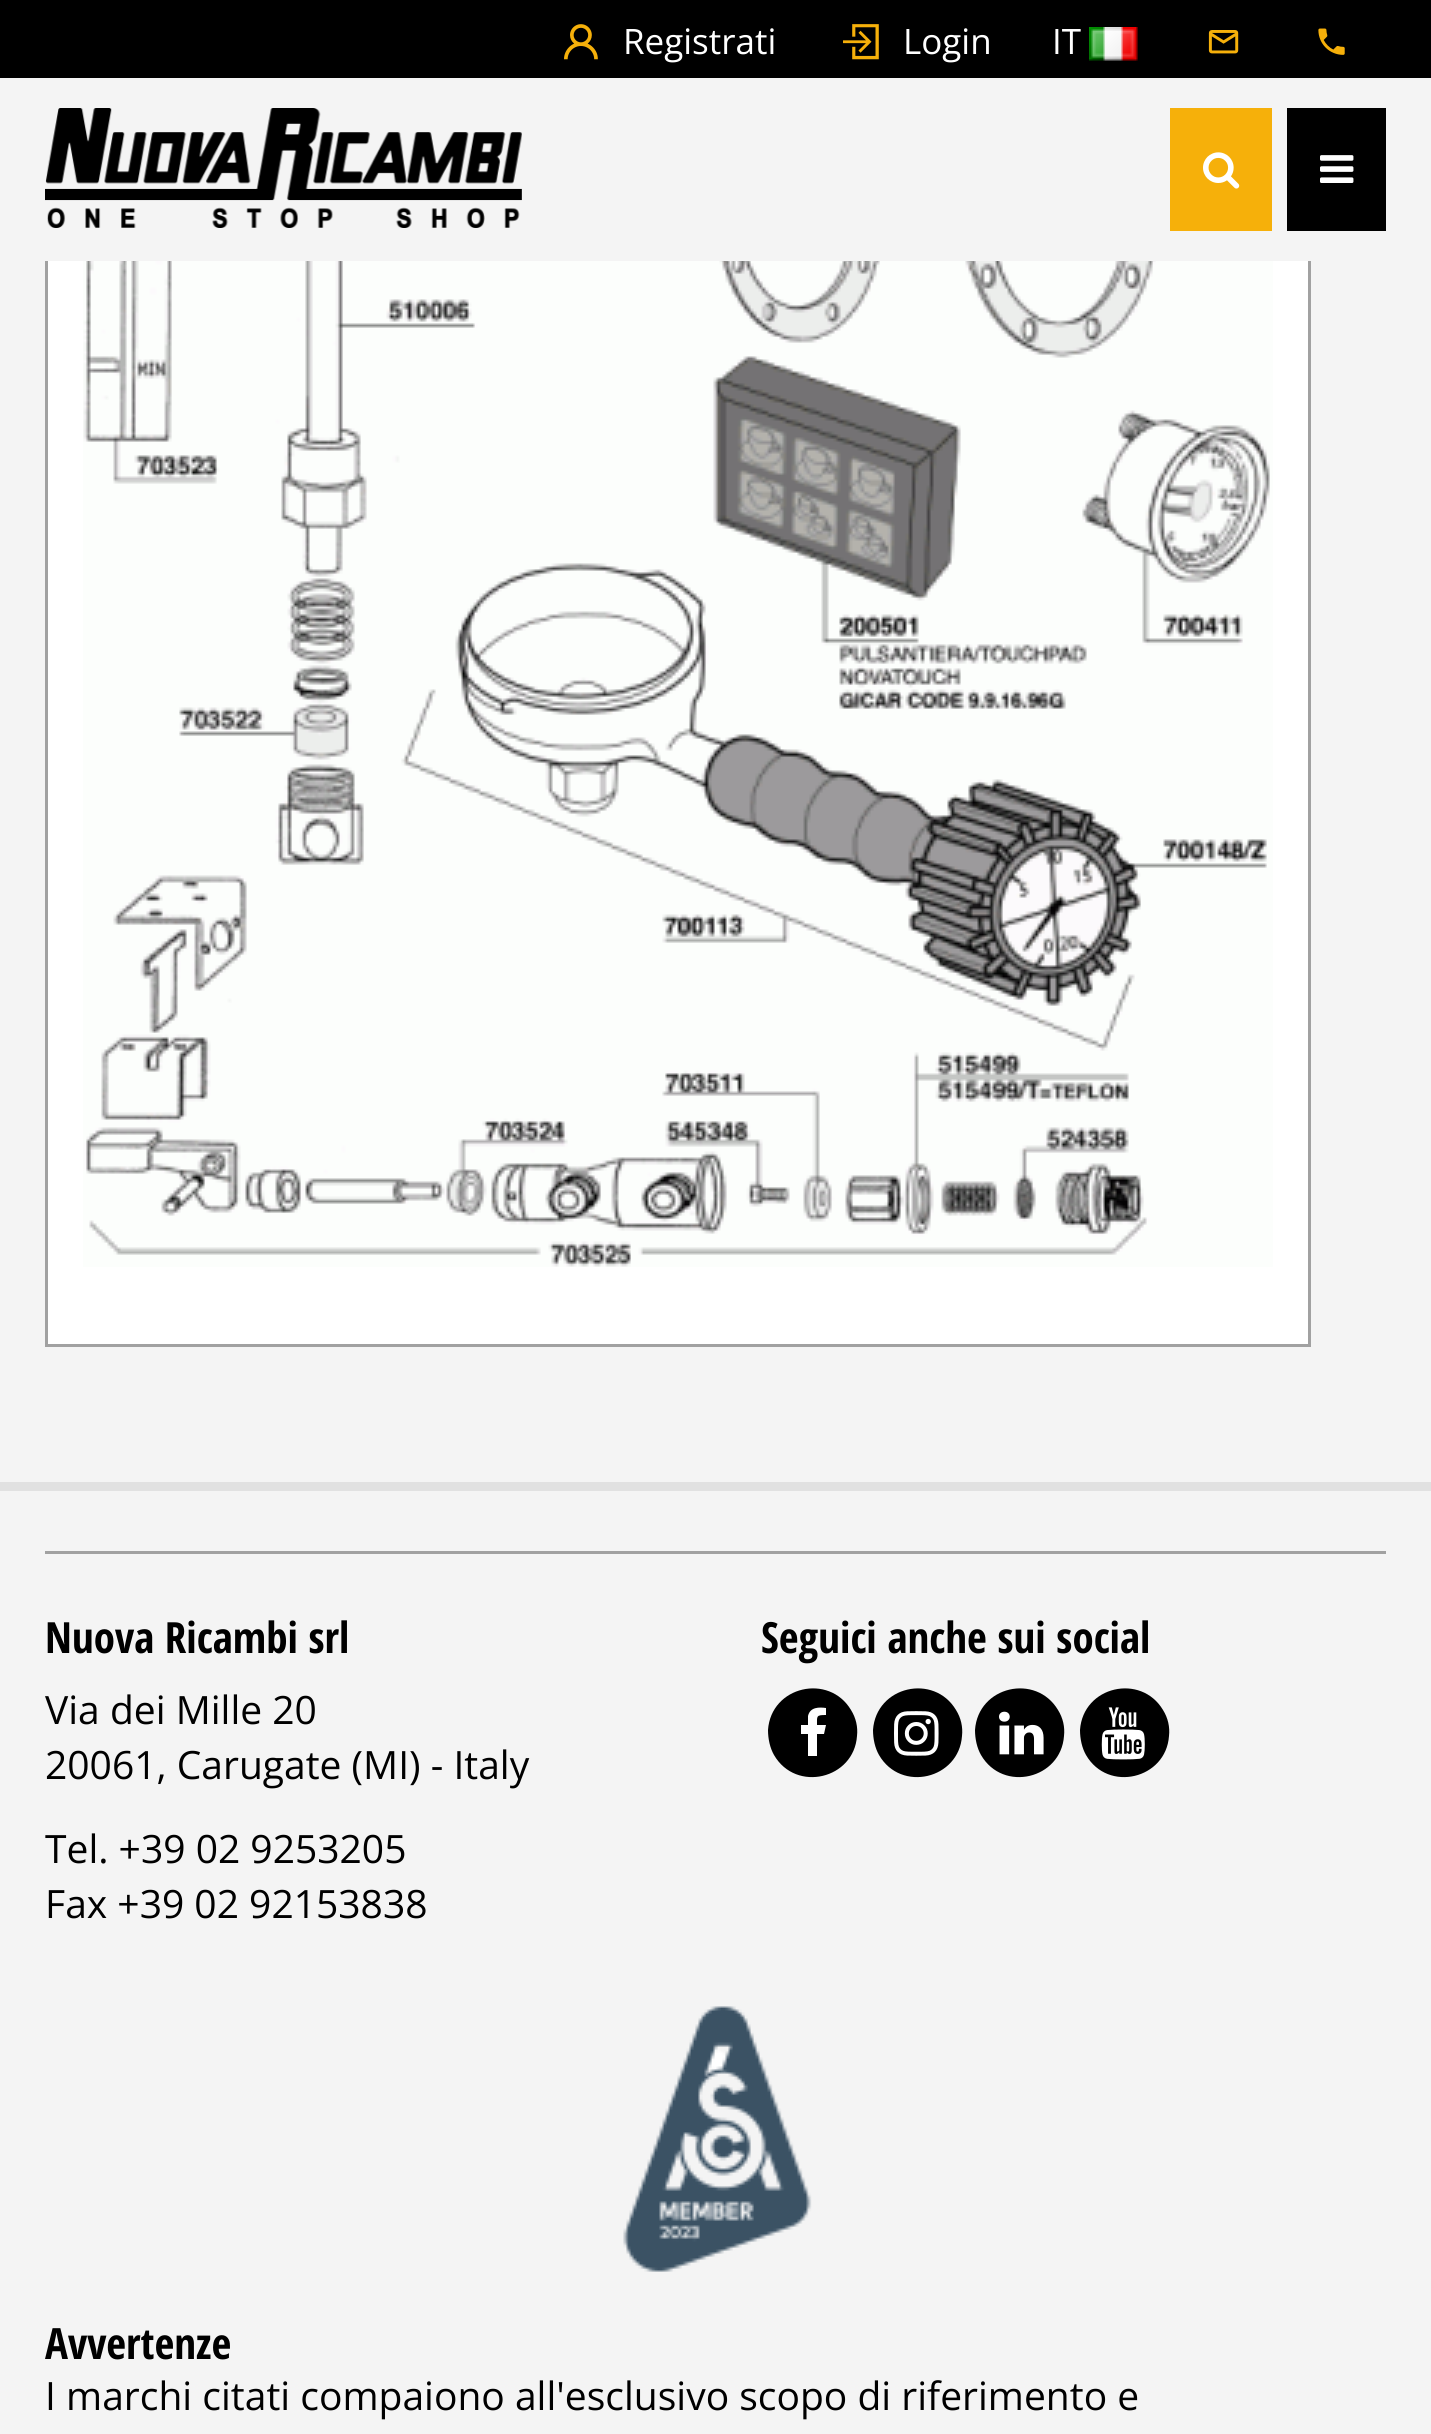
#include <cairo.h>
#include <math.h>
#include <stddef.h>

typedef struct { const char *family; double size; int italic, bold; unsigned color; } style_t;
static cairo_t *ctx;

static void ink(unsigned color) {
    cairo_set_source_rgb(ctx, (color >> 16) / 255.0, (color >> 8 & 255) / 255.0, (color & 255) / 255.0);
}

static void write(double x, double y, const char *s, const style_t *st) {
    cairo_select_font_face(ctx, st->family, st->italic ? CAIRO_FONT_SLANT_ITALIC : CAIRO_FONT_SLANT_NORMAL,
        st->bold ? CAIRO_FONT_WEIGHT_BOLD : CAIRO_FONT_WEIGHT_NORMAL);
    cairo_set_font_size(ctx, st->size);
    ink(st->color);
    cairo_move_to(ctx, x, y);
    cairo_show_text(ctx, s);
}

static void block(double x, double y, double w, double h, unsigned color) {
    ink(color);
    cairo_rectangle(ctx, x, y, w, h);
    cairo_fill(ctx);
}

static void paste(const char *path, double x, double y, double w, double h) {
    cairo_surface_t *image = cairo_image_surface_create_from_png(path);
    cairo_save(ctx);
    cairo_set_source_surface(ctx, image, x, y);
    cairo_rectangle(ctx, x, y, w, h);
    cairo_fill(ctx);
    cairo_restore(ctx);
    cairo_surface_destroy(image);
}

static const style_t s1 = {"Open Sans", 35, 0, 0, 0xffffff};
static const style_t s2 = {"Open Sans Condensed", 43, 0, 1, 0x000000};
static const style_t s3 = {"Open Sans", 39, 0, 0, 0x000000};

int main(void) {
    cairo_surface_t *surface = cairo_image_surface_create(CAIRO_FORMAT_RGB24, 1431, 2434);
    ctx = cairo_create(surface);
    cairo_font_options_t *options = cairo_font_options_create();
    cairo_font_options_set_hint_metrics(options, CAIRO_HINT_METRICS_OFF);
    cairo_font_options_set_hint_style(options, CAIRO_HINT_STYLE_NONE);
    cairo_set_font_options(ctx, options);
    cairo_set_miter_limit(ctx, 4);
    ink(0xf4f4f4);
    cairo_paint(ctx);
    block(48, 261, 1260, 1083, 0xffffff);
    cairo_rectangle(ctx, 46.5, -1.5, 1263, 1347);
    ink(0xa1a1a1);
    cairo_set_line_width(ctx, 3);
    cairo_stroke(ctx);
    paste("pic1.png", 83, 261, 1190, 1006);
    block(45, 78, 1266, 183, 0xf4f4f4);
    block(0, 0, 1431, 78, 0x000000);
    paste("pic2.png", 564, 24, 34, 36);
    write(623, 54, "Registrati", &s1);
    paste("pic3.png", 843, 24, 36, 36);
    write(903, 54, "Login", &s1);
    write(1052, 54, "IT", &s1);
    paste("pic4.png", 1089, 27, 49, 34);
    paste("pic5.png", 1208, 30, 31, 24);
    paste("pic6.png", 1318, 28, 27, 27);
    paste("pic7.png", 45, 108, 477, 120);
    block(1170, 108, 102, 123, 0xf6b00a);
    paste("pic8.png", 1203, 152, 37, 37);
    block(1287, 108, 99, 123, 0x000000);
    paste("pic9.png", 1320, 155, 34, 28);
    block(0, 1482, 1431, 9, 0xe1e1e1);
    block(45, 1551, 1341, 3, 0xa1a1a1);
    write(45, 1653, "Nuova Ricambi srl", &s2);
    write(45, 1724, "Via dei Mille 20", &s3);
    write(45, 1779, "20061, Carugate (MI) - Italy", &s3);
    write(45, 1863, "Tel. +39 02 9253205", &s3);
    write(45, 1918, "Fax +39 02 92153838", &s3);
    write(761, 1653, "Seguici anche sui social", &s2);
    cairo_new_path(ctx);
    cairo_move_to(ctx, 851, 1710);
    cairo_curve_to(ctx, 856, 1718, 858, 1727, 857, 1736);
    cairo_curve_to(ctx, 854, 1779, 796, 1793, 774, 1755);
    cairo_curve_to(ctx, 770, 1748, 768, 1739, 768, 1730);
    cairo_curve_to(ctx, 771, 1686, 829, 1673, 851, 1710);
    cairo_close_path(ctx);
    cairo_fill(ctx);
    ink(0xffffff);
    cairo_new_path(ctx);
    cairo_move_to(ctx, 826, 1708);
    cairo_line_to(ctx, 826, 1715);
    cairo_curve_to(ctx, 816, 1715, 817, 1716, 817, 1725);
    cairo_line_to(ctx, 826, 1725);
    cairo_line_to(ctx, 824, 1734);
    cairo_line_to(ctx, 817, 1734);
    cairo_line_to(ctx, 817, 1756);
    cairo_line_to(ctx, 808, 1756);
    cairo_line_to(ctx, 808, 1734);
    cairo_line_to(ctx, 801, 1734);
    cairo_line_to(ctx, 801, 1725);
    cairo_line_to(ctx, 808, 1725);
    cairo_line_to(ctx, 808, 1716);
    cairo_curve_to(ctx, 810, 1707, 819, 1707, 826, 1708);
    cairo_close_path(ctx);
    cairo_fill(ctx);
    ink(0x000000);
    cairo_new_path(ctx);
    cairo_move_to(ctx, 956, 1710);
    cairo_curve_to(ctx, 961, 1718, 963, 1727, 962, 1736);
    cairo_curve_to(ctx, 959, 1779, 901, 1793, 879, 1755);
    cairo_curve_to(ctx, 875, 1748, 873, 1739, 873, 1730);
    cairo_curve_to(ctx, 876, 1686, 934, 1673, 956, 1710);
    cairo_close_path(ctx);
    cairo_fill(ctx);
    paste("pic10.png", 894, 1711, 45, 45);
    cairo_new_path(ctx);
    cairo_move_to(ctx, 1058, 1710);
    cairo_curve_to(ctx, 1063, 1718, 1065, 1727, 1064, 1736);
    cairo_curve_to(ctx, 1061, 1779, 1003, 1793, 981, 1755);
    cairo_curve_to(ctx, 977, 1748, 975, 1739, 975, 1730);
    cairo_curve_to(ctx, 978, 1686, 1036, 1673, 1058, 1710);
    cairo_close_path(ctx);
    cairo_fill(ctx);
    paste("pic11.png", 999, 1711, 45, 44);
    cairo_new_path(ctx);
    cairo_move_to(ctx, 1163, 1710);
    cairo_curve_to(ctx, 1168, 1718, 1170, 1727, 1169, 1736);
    cairo_curve_to(ctx, 1166, 1779, 1108, 1793, 1086, 1755);
    cairo_curve_to(ctx, 1082, 1748, 1080, 1739, 1080, 1730);
    cairo_curve_to(ctx, 1083, 1686, 1141, 1673, 1163, 1710);
    cairo_close_path(ctx);
    cairo_fill(ctx);
    paste("pic12.png", 1101, 1707, 44, 53);
    paste("pic13.png", 623, 2006, 189, 266);
    write(45, 2359, "Avvertenze", &s2);
    write(45, 2410, "I marchi citati compaiono all'esclusivo scopo di riferimento e", &s3);
    cairo_surface_write_to_png(surface, "screenshot.png");
    cairo_font_options_destroy(options);
    cairo_destroy(ctx);
    cairo_surface_destroy(surface);
    return 0;
}
